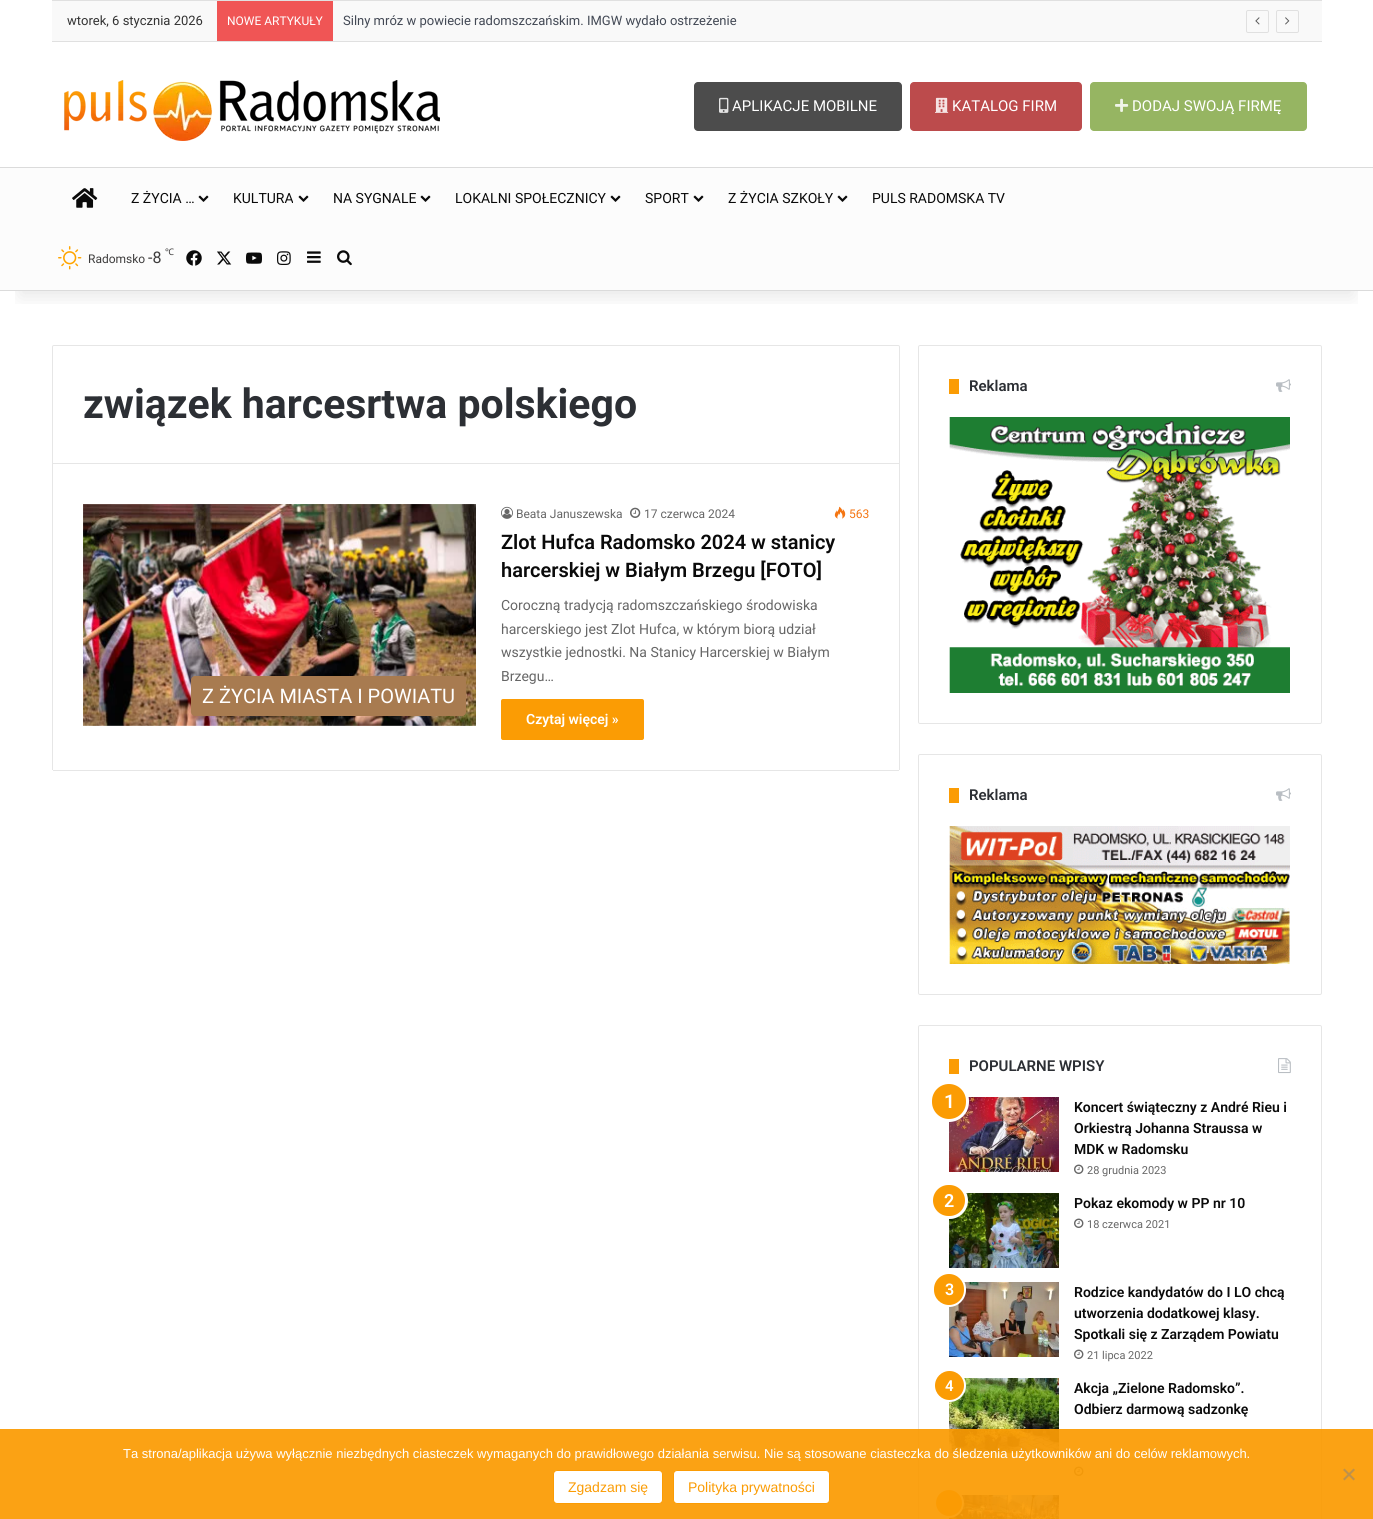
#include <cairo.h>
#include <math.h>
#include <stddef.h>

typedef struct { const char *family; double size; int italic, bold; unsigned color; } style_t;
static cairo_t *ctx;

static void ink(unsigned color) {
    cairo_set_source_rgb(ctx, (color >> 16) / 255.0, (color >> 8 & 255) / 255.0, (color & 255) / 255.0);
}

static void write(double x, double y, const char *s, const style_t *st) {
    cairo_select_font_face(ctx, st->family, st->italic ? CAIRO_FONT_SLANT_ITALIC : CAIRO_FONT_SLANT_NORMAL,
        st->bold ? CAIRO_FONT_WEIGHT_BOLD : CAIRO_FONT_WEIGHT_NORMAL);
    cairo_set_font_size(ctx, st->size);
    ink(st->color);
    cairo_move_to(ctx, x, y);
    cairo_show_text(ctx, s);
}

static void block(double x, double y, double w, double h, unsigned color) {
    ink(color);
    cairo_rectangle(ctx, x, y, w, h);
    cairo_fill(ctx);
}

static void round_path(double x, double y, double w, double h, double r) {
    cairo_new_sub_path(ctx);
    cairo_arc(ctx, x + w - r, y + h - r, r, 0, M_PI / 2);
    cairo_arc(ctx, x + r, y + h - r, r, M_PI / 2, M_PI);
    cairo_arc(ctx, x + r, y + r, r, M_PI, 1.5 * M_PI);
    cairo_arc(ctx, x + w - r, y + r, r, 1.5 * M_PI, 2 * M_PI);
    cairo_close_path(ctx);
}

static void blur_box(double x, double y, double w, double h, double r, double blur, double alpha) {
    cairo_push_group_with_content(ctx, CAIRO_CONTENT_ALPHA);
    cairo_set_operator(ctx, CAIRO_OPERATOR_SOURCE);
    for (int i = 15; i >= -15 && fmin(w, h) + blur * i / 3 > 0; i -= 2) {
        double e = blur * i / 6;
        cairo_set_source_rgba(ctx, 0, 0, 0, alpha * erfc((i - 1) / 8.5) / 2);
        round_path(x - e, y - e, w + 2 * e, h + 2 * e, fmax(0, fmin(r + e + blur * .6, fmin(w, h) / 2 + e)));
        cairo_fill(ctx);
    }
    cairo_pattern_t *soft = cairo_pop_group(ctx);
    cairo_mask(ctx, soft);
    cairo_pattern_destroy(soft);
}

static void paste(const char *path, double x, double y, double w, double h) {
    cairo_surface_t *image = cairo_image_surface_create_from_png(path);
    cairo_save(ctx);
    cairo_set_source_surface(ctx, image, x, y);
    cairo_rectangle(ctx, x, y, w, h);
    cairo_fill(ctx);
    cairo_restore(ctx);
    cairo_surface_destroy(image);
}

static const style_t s1 = {"Roboto", 13, 0, 0, 0x333333};
static const style_t s2 = {"Roboto", 12, 0, 0, 0xffffff};
static const style_t s3 = {"Roboto", 13, 0, 0, 0x434955};
static const style_t s4 = {"Roboto", 15, 0, 0, 0xffffff};
static const style_t s5 = {"Roboto", 14, 0, 0, 0x0a0a0a};
static const style_t s6 = {"Roboto", 12, 0, 0, 0x3d3c3c};
static const style_t s7 = {"Roboto", 16, 0, 0, 0x3d3c3c};
static const style_t s8 = {"Noto Sans", 9, 0, 0, 0x3d3c3c};
static const style_t s9 = {"Roboto", 41, 0, 1, 0x2c2f34};
static const style_t s10 = {"Roboto", 20, 0, 0, 0xffffff};
static const style_t s11 = {"Roboto", 12, 0, 0, 0x666666};
static const style_t s12 = {"Roboto", 12, 0, 0, 0xf47512};
static const style_t s13 = {"Roboto SemiBold", 20, 0, 0, 0x0a0a0a};
static const style_t s14 = {"Roboto", 14, 0, 0, 0x666666};
static const style_t s15 = {"Roboto SemiBold", 14, 0, 0, 0xffffff};
static const style_t s16 = {"Roboto SemiBold", 15, 0, 0, 0x2c2f34};
static const style_t s17 = {"Roboto SemiBold", 19, 0, 0, 0xffffff};
static const style_t s18 = {"Roboto SemiBold", 14, 0, 0, 0x0a0a0a};
static const style_t s19 = {"Roboto", 11, 0, 0, 0x666666};
static const style_t s20 = {"Roboto SemiBold", 18, 0, 0, 0xffffff};
static const style_t s21 = {"Roboto SemiBold", 16, 0, 0, 0xffffff};
static const style_t s22 = {"Roboto SemiBold", 15, 0, 0, 0xffffff};
static const style_t s23 = {"Liberation Sans", 13, 0, 0, 0xffffff};
static const style_t s24 = {"Liberation Sans", 14, 0, 0, 0xfb9c04};

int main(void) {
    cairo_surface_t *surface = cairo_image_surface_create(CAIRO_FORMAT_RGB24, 1373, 1519);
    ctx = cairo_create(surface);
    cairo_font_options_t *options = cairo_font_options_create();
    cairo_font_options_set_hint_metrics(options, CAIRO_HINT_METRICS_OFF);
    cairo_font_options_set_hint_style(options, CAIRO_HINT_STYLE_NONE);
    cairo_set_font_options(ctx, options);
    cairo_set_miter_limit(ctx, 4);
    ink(0xffffff);
    cairo_paint(ctx);
    cairo_save(ctx);
    cairo_rectangle(ctx, 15, 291, 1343, 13);
    cairo_clip(ctx);
    ink(0x000000);
    blur_box(20, 45, 1333, 251, 0, 10, 0.1);
    cairo_restore(ctx);
    block(52, 1, 1270, 40, 0xf9f9f9);
    block(52, 0, 1270, 1, 0xe0e0e0);
    block(52, 41, 1270, 1, 0xe0e0e0);
    write(67, 25, "wtorek, 6 stycznia 2026", &s1);
    block(217, 1, 116, 40, 0xf05555);
    write(227, 25, "NOWE ARTYKUŁY", &s2);
    write(343, 25, "Silny mróz w powiecie radomszczańskim. IMGW wydało ostrzeżenie", &s3);
    round_path(1246.5, 10.5, 22, 22, 1.5);
    ink(0xe0e0e0);
    cairo_set_line_width(ctx, 1);
    cairo_stroke(ctx);
    paste("pic1.png", 1255, 17, 5, 8);
    round_path(1276.5, 10.5, 22, 22, 1.5);
    cairo_stroke(ctx);
    paste("pic2.png", 1285, 17, 5, 8);
    paste("pic3.png", 64, 80, 376, 61);
    ink(0x4c4c4c);
    round_path(694, 82, 208, 49, 4);
    cairo_fill(ctx);
    paste("pic4.png", 719, 97, 10, 16);
    write(732, 111, "APLIKACJE MOBILNE", &s4);
    ink(0xbc4b4c);
    round_path(910, 82, 172, 49, 4);
    cairo_fill(ctx);
    paste("pic5.png", 935, 97, 14, 16);
    write(952, 111, "KATALOG FIRM", &s4);
    ink(0x96b562);
    round_path(1090, 82, 217, 49, 4);
    cairo_fill(ctx);
    paste("pic6.png", 1115, 98, 14, 14);
    write(1132, 111, "DODAJ SWOJĄ FIRMĘ", &s4);
    block(0, 168, 1373, 122, 0xfcfcfc);
    block(0, 167, 1373, 1, 0xdbdbdb);
    block(0, 290, 1373, 1, 0xdbdbdb);
    paste("pic7.png", 72, 188, 26, 20);
    write(131, 203, "Z ŻYCIA …", &s5);
    paste("pic8.png", 198, 195, 11, 7);
    write(233, 203, "KULTURA", &s5);
    paste("pic8.png", 298, 195, 11, 7);
    write(333, 203, "NA SYGNALE", &s5);
    paste("pic8.png", 420, 195, 11, 7);
    write(455, 203, "LOKALNI SPOŁECZNICY", &s5);
    paste("pic8.png", 610, 195, 11, 7);
    write(645, 203, "SPORT", &s5);
    paste("pic8.png", 693, 195, 11, 7);
    write(728, 203, "Z ŻYCIA SZKOŁY", &s5);
    paste("pic8.png", 837, 195, 11, 7);
    write(872, 203, "PULS RADOMSKA TV", &s5);
    paste("pic9.png", 58, 246, 24, 24);
    write(88, 263, "Radomsko", &s6);
    write(148, 263, "-8", &s7);
    write(165, 255, "℃", &s8);
    paste("pic10.png", 186, 250, 16, 16);
    paste("pic11.png", 217, 251, 15, 14);
    paste("pic12.png", 246, 252, 16, 12);
    paste("pic13.png", 277, 251, 14, 14);
    paste("pic14.png", 307, 251, 14, 12);
    paste("pic15.png", 337, 250, 15, 16);
    cairo_new_path(ctx);
    cairo_move_to(ctx, 54, 345.5);
    cairo_line_to(ctx, 898, 345.5);
    cairo_curve_to(ctx, 899, 345.5, 899.5, 346, 899.5, 347);
    cairo_line_to(ctx, 899.5, 463.5);
    cairo_line_to(ctx, 52.5, 463.5);
    cairo_line_to(ctx, 52.5, 347);
    cairo_curve_to(ctx, 52.5, 346, 53, 345.5, 54, 345.5);
    cairo_close_path(ctx);
    ink(0xe6e6e6);
    cairo_stroke(ctx);
    write(83, 418, "związek harcesrtwa polskiego", &s9);
    block(899, 464, 1, 306, 0xe6e6e6);
    block(53, 770, 846, 1, 0xe6e6e6);
    block(52, 464, 1, 306, 0xe6e6e6);
    paste("pic16.png", 83, 504, 393, 222);
    ink(0xa87b50);
    round_path(191, 676, 275, 40, 4);
    cairo_fill(ctx);
    write(202, 703, "Z ŻYCIA MIASTA I POWIATU", &s10);
    paste("pic17.png", 501, 506, 12, 13);
    write(516, 518, "Beata Januszewska", &s11);
    paste("pic18.png", 630, 507, 11, 11);
    write(644, 518, "17 czerwca 2024", &s11);
    paste("pic19.png", 834, 506, 12, 13);
    write(849, 518, "563", &s12);
    write(501, 549, "Zlot Hufca Radomsko 2024 w stanicy", &s13);
    write(501, 577, "harcerskiej w Białym Brzegu [FOTO]", &s13);
    write(501, 610, "Coroczną tradycją radomszczańskiego środowiska", &s14);
    write(501, 634, "harcerskiego jest Zlot Hufca, w którym biorą udział", &s14);
    write(501, 657, "wszystkie jednostki. Na Stanicy Harcerskiej w Białym", &s14);
    write(501, 681, "Brzegu…", &s14);
    ink(0xfb9c04);
    round_path(501, 699, 143, 41, 2);
    cairo_fill(ctx);
    write(526, 724, "Czytaj więcej »", &s15);
    round_path(918.5, 345.5, 403, 378, 1.5);
    ink(0xe6e6e6);
    cairo_stroke(ctx);
    block(949, 379, 10, 15, 0xfb9c04);
    write(969, 391, "Reklama", &s16);
    paste("pic20.png", 1276, 379, 15, 13);
    paste("pic21.png", 949, 417, 341, 276);
    round_path(918.5, 754.5, 403, 240, 1.5);
    ink(0xe6e6e6);
    cairo_stroke(ctx);
    block(949, 788, 10, 15, 0xfb9c04);
    write(969, 800, "Reklama", &s16);
    paste("pic20.png", 1276, 788, 15, 13);
    paste("pic22.png", 949, 826, 341, 138);
    round_path(918.5, 1025.5, 403, 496, 1.5);
    ink(0xe6e6e6);
    cairo_stroke(ctx);
    block(949, 1059, 10, 15, 0xfb9c04);
    write(969, 1071, "POPULARNE WPISY", &s16);
    paste("pic23.png", 1278, 1058, 13, 16);
    paste("pic24.png", 949, 1097, 110, 75);
    ink(0xfb9c04);
    round_path(930.5, 1082.5, 37, 38, 18.5);
    cairo_fill_preserve(ctx);
    ink(0xffffff);
    cairo_set_line_width(ctx, 3);
    cairo_stroke(ctx);
    write(944, 1108, "1", &s17);
    write(1074, 1112, "Koncert świąteczny z André Rieu i", &s18);
    write(1074, 1133, "Orkiestrą Johanna Straussa w", &s18);
    write(1074, 1154, "MDK w Radomsku", &s18);
    paste("pic25.png", 1074, 1164, 10, 10);
    write(1087, 1174, "28 grudnia 2023", &s19);
    paste("pic26.png", 949, 1193, 110, 75);
    ink(0xfb9c04);
    round_path(931.5, 1183.5, 35, 34, 17);
    cairo_fill_preserve(ctx);
    ink(0xffffff);
    cairo_stroke(ctx);
    write(944, 1207, "2", &s20);
    write(1074, 1208, "Pokaz ekomody w PP nr 10", &s18);
    paste("pic25.png", 1074, 1218, 10, 10);
    write(1087, 1228, "18 czerwca 2021", &s19);
    paste("pic27.png", 949, 1282, 110, 75);
    ink(0xfb9c04);
    round_path(933, 1273, 32, 33, 16);
    cairo_fill_preserve(ctx);
    ink(0xffffff);
    cairo_set_line_width(ctx, 2);
    cairo_stroke(ctx);
    write(945, 1295, "3", &s21);
    write(1074, 1297, "Rodzice kandydatów do I LO chcą", &s18);
    write(1074, 1318, "utworzenia dodatkowej klasy.", &s18);
    write(1074, 1339, "Spotkali się z Zarządem Powiatu", &s18);
    paste("pic25.png", 1074, 1349, 10, 10);
    write(1087, 1359, "21 lipca 2022", &s19);
    paste("pic28.png", 949, 1378, 110, 75);
    ink(0xfb9c04);
    cairo_arc(ctx, 949.5, 1385.5, 15.5, 0, 2 * M_PI);
    cairo_fill_preserve(ctx);
    ink(0xffffff);
    cairo_stroke(ctx);
    write(945, 1391, "4", &s22);
    write(1074, 1393, "Akcja „Zielone Radomsko”.", &s18);
    write(1074, 1414, "Odbierz darmową sadzonkę", &s18);
    paste("pic25.png", 1074, 1466, 10, 10);
    paste("pic29.png", 949, 1495, 110, 24);
    ink(0xfb9c04);
    cairo_arc(ctx, 949, 1503, 14, 0, 2 * M_PI);
    cairo_fill_preserve(ctx);
    ink(0xffffff);
    cairo_stroke(ctx);
    cairo_set_source_rgba(ctx, 0.984, 0.612, 0.016, 0.93);
    cairo_rectangle(ctx, 0, 1429, 1373, 90);
    cairo_fill(ctx);
    write(123, 1458, "Ta strona/aplikacja używa wyłącznie niezbędnych ciasteczek wymaganych do prawidłowego działania serwisu. Nie są stosowane ciasteczka do śledzenia użytkowników ani do celów reklamowych.", &s23);
    ink(0xbe914b);
    cairo_new_path(ctx);
    cairo_move_to(ctx, 1353.5, 1468.5);
    cairo_line_to(ctx, 1355, 1470);
    cairo_line_to(ctx, 1344.5, 1480.5);
    cairo_line_to(ctx, 1343, 1479);
    cairo_close_path(ctx);
    cairo_fill(ctx);
    cairo_new_path(ctx);
    cairo_move_to(ctx, 1343, 1470);
    cairo_line_to(ctx, 1344.5, 1468.5);
    cairo_line_to(ctx, 1355, 1479);
    cairo_line_to(ctx, 1353.5, 1480.5);
    cairo_close_path(ctx);
    cairo_fill(ctx);
    ink(0xffffff);
    round_path(553.5, 1470.5, 109, 33, 3.5);
    cairo_fill_preserve(ctx);
    ink(0xfb9c04);
    cairo_set_line_width(ctx, 1);
    cairo_stroke(ctx);
    write(568, 1492, "Zgadzam się", &s24);
    ink(0xffffff);
    round_path(673.5, 1470.5, 156, 33, 3.5);
    cairo_fill_preserve(ctx);
    ink(0xfb9c04);
    cairo_stroke(ctx);
    write(688, 1492, "Polityka prywatności", &s24);
    cairo_surface_write_to_png(surface, "screenshot.png");
    cairo_font_options_destroy(options);
    cairo_destroy(ctx);
    cairo_surface_destroy(surface);
    return 0;
}
